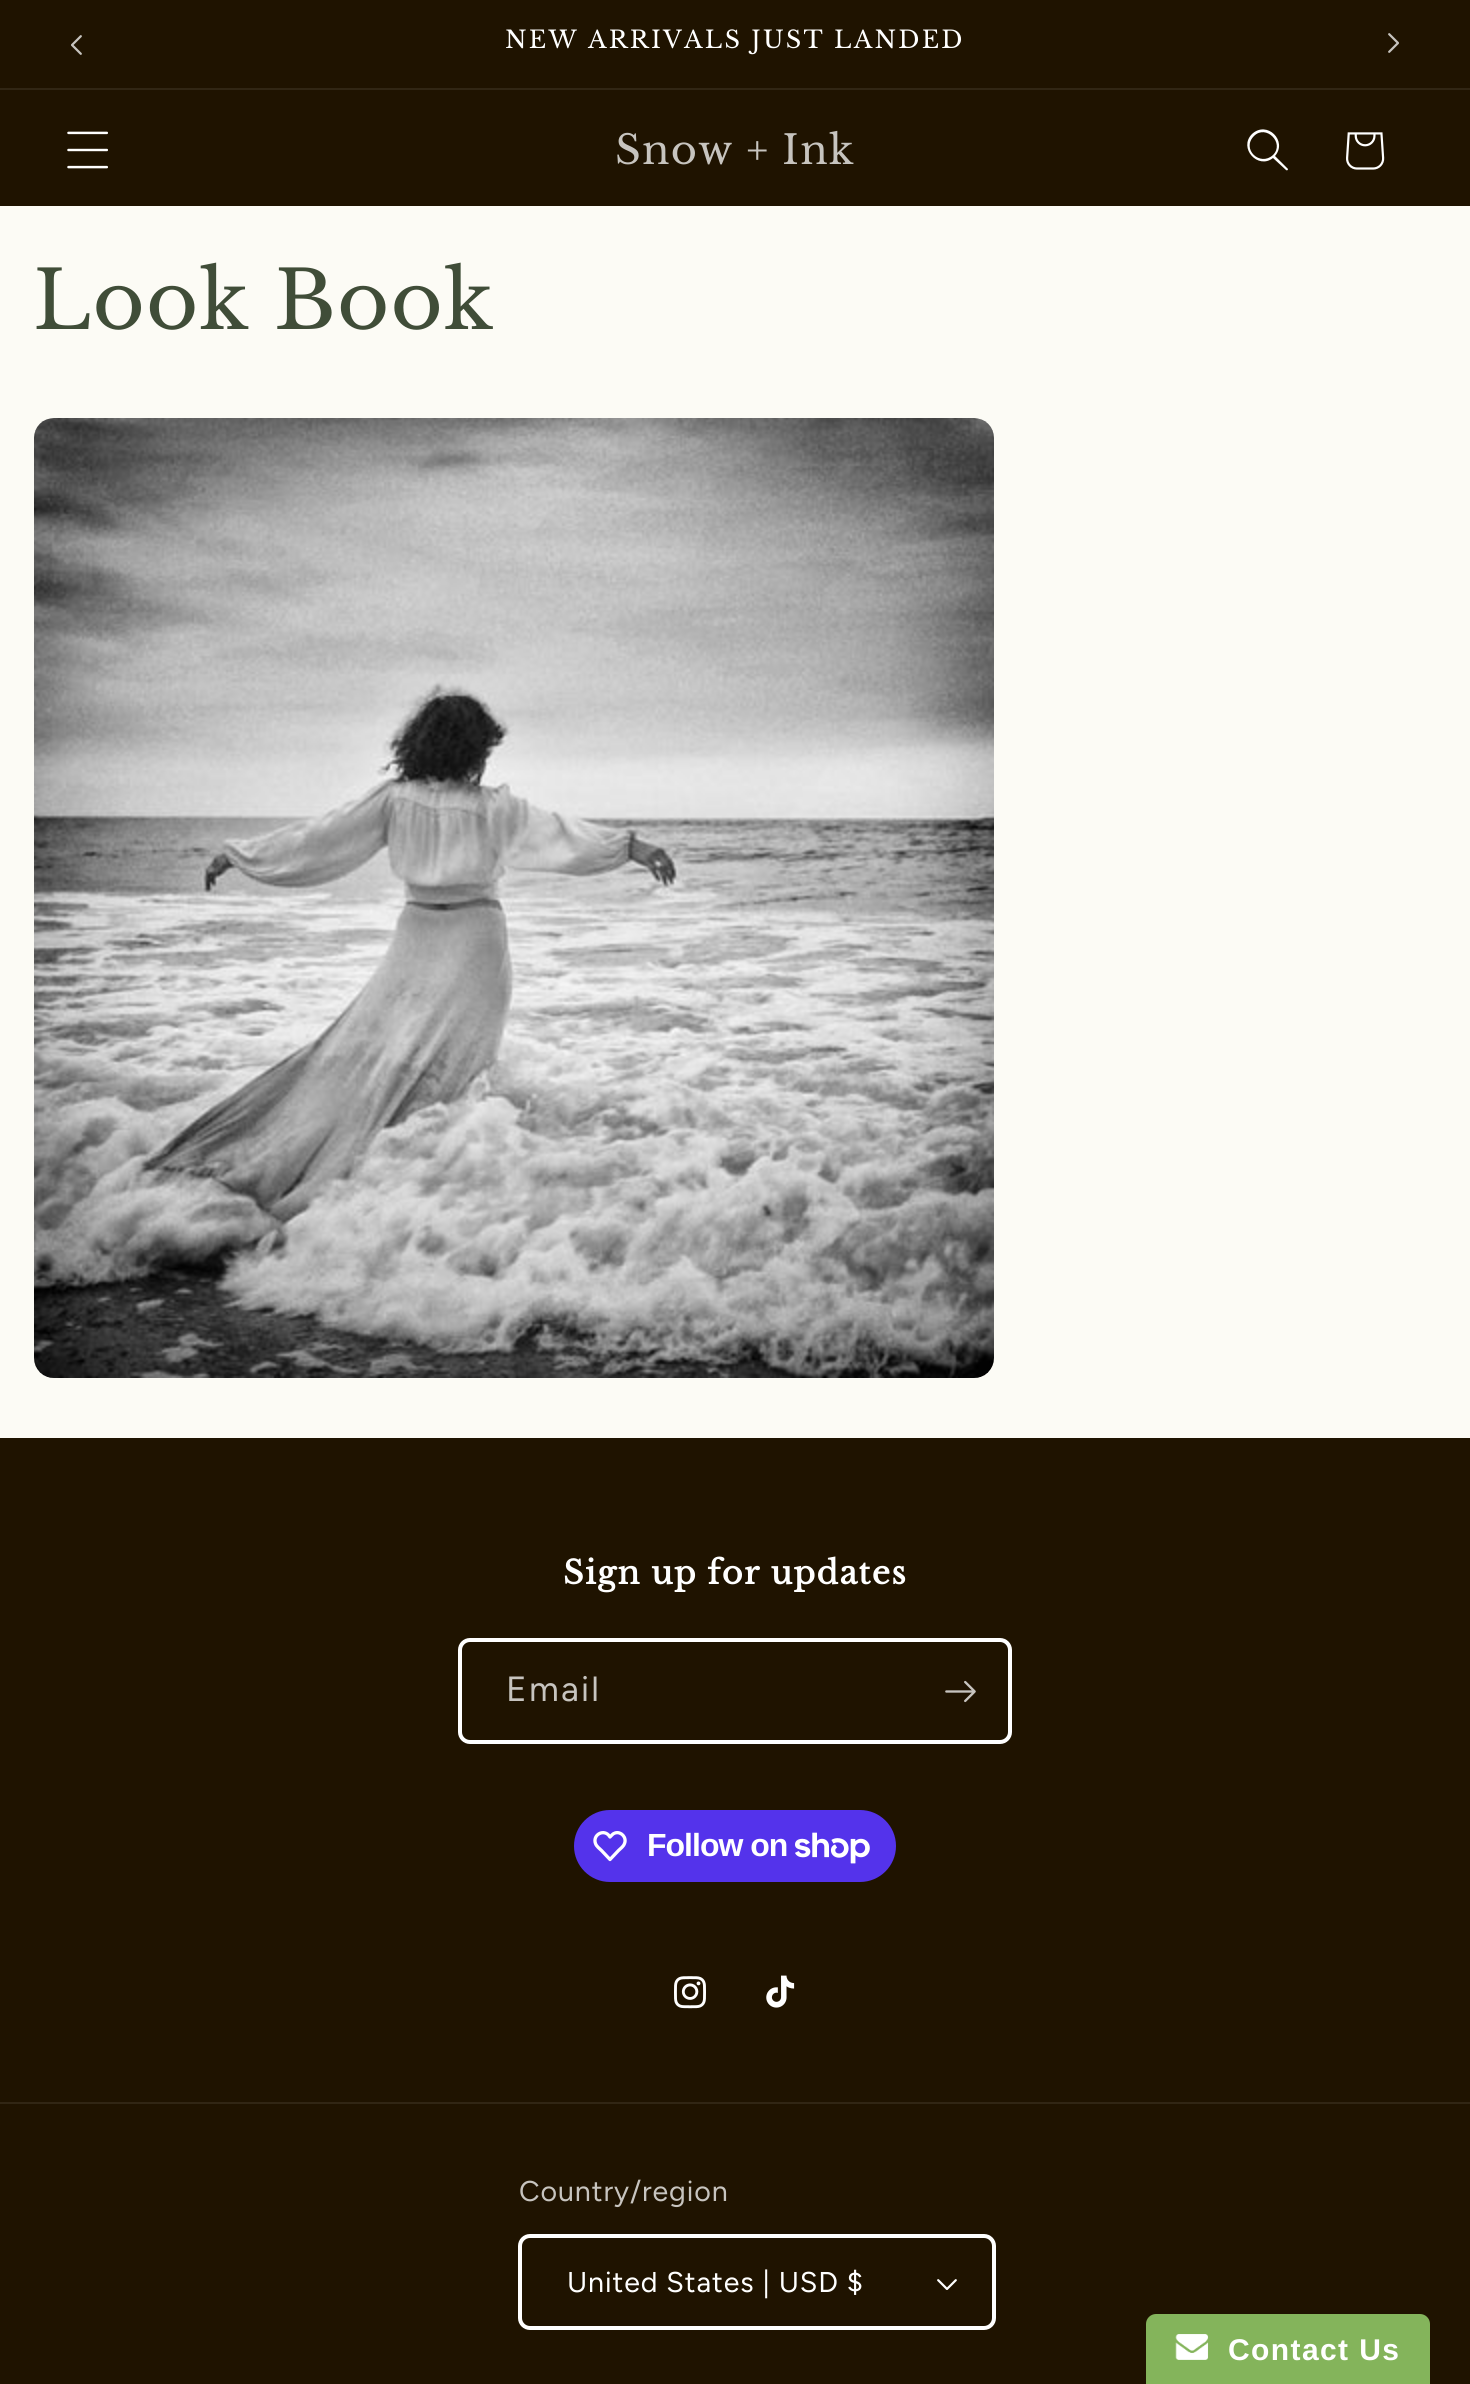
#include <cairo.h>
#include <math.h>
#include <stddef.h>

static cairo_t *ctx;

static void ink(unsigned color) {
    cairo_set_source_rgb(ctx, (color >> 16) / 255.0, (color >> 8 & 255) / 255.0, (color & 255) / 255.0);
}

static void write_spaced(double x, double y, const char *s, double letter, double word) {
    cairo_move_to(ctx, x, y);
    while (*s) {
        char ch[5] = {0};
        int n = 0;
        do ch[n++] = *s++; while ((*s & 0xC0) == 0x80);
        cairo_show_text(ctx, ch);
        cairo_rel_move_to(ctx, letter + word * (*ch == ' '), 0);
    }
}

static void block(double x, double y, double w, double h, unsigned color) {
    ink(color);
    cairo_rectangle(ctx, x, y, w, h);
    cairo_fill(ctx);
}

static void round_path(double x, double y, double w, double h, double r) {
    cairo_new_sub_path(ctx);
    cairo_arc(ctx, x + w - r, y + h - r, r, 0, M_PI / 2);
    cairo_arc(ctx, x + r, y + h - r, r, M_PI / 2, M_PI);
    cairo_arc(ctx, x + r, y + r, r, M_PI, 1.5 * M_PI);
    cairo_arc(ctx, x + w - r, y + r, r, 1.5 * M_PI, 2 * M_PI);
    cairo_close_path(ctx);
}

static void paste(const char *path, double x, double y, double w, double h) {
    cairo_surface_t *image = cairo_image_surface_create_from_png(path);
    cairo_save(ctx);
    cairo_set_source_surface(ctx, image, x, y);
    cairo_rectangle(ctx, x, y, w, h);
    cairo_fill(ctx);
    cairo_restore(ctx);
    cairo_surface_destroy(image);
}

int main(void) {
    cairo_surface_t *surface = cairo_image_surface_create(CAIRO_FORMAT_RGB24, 1470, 2384);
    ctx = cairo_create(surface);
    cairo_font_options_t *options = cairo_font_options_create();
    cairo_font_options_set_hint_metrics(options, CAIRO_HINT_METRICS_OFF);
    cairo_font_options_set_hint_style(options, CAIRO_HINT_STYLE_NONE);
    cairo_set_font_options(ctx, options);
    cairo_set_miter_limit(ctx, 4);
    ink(0xfcfbf5);
    cairo_paint(ctx);
    block(0, 0, 1470, 88, 0x1f1300);
    block(0, 88, 1470, 2, 0x312614);
    paste("pic1.png", 71, 35, 11, 20);
    cairo_select_font_face(ctx, "Libre Baskerville", CAIRO_FONT_SLANT_NORMAL, CAIRO_FONT_WEIGHT_NORMAL);
    cairo_set_font_size(ctx, 24);
    ink(0xffffff);
    write_spaced(505, 48, "NEW ARRIVALS JUST LANDED", 2.2, 0);
    paste("pic2.png", 1388, 33, 11, 20);
    block(0, 90, 1470, 116, 0x1f1300);
    paste("pic3.png", 67, 131, 41, 38);
    cairo_set_font_size(ctx, 40);
    ink(0xc7c4bf);
    write_spaced(615, 164, "Snow + Ink", 1.25, 0);
    ink(0xffffff);
    cairo_set_fill_rule(ctx, CAIRO_FILL_RULE_EVEN_ODD);
    cairo_new_path(ctx);
    cairo_move_to(ctx, 1273, 155);
    cairo_curve_to(ctx, 1260, 167, 1241, 149, 1254, 136);
    cairo_curve_to(ctx, 1266, 124, 1285, 143, 1273, 155);
    cairo_move_to(ctx, 1273, 158);
    cairo_curve_to(ctx, 1258, 170, 1238, 148, 1252, 134);
    cairo_curve_to(ctx, 1267, 120, 1288, 141, 1275, 156);
    cairo_line_to(ctx, 1288, 169);
    cairo_curve_to(ctx, 1288, 170, 1287, 171, 1286, 170);
    cairo_close_path(ctx);
    cairo_fill(ctx);
    paste("pic4.png", 1346, 132, 39, 38);
    cairo_set_font_size(ctx, 80);
    ink(0x404d38);
    write_spaced(33, 329, "Look Book", 1.25, 0);
    paste("pic5.png", 34, 418, 960, 960);
    block(0, 1438, 1470, 946, 0x1f1300);
    cairo_select_font_face(ctx, "Libre Baskerville", CAIRO_FONT_SLANT_NORMAL, CAIRO_FONT_WEIGHT_BOLD);
    cairo_set_font_size(ctx, 32);
    ink(0xffffff);
    write_spaced(563, 1584, "Sign up for updates", 1.25, 0);
    round_path(460, 1640, 550, 102, 10);
    cairo_set_line_width(ctx, 4);
    cairo_stroke(ctx);
    cairo_select_font_face(ctx, "Figtree", CAIRO_FONT_SLANT_NORMAL, CAIRO_FONT_WEIGHT_NORMAL);
    cairo_set_font_size(ctx, 35);
    ink(0xc7c4bf);
    write_spaced(506, 1701, "Email", 2.2, 0);
    paste("pic6.png", 945, 1680, 31, 23);
    ink(0x5433eb);
    round_path(574, 1810, 322, 72, 36);
    cairo_fill(ctx);
    cairo_new_path(ctx);
    cairo_move_to(ctx, 608.5, 1835);
    cairo_line_to(ctx, 610, 1837);
    cairo_curve_to(ctx, 611.5, 1835.5, 613, 1833.5, 615, 1833);
    cairo_curve_to(ctx, 621, 1831, 627, 1837.5, 624.5, 1843.5);
    cairo_curve_to(ctx, 623.5, 1846.5, 620.5, 1848.5, 618.5, 1850.5);
    cairo_line_to(ctx, 610, 1859.5);
    cairo_line_to(ctx, 601.5, 1850.5);
    cairo_curve_to(ctx, 599.5, 1848.5, 596.5, 1846.5, 595.5, 1843.5);
    cairo_curve_to(ctx, 592.5, 1835.5, 602.5, 1829, 608.5, 1835);
    cairo_close_path(ctx);
    ink(0xffffff);
    cairo_set_line_width(ctx, 3.3);
    cairo_set_line_join(ctx, CAIRO_LINE_JOIN_ROUND);
    cairo_stroke(ctx);
    cairo_select_font_face(ctx, "Liberation Sans", CAIRO_FONT_SLANT_NORMAL, CAIRO_FONT_WEIGHT_BOLD);
    cairo_set_font_size(ctx, 32);
    write_spaced(647, 1856, "Follow on", -1, 0);
    paste("pic7.png", 795, 1832, 75, 32);
    paste("pic8.png", 674, 1976, 32, 33);
    paste("pic9.png", 766, 1975, 29, 33);
    block(0, 2102, 1470, 2, 0x312614);
    cairo_select_font_face(ctx, "Figtree", CAIRO_FONT_SLANT_NORMAL, CAIRO_FONT_WEIGHT_NORMAL);
    cairo_set_font_size(ctx, 28.6);
    ink(0xc7c4bf);
    write_spaced(519, 2201, "Country/region", 0.9, 0);
    paste("pic10.png", 937, 2279, 20, 11);
    round_path(520, 2236, 474, 92, 10);
    ink(0xffffff);
    cairo_set_line_width(ctx, 4);
    cairo_set_line_join(ctx, CAIRO_LINE_JOIN_MITER);
    cairo_stroke(ctx);
    write_spaced(567, 2292, "United States | USD $", 0.9, 0);
    ink(0x84b45b);
    cairo_new_path(ctx);
    cairo_move_to(ctx, 1156, 2314);
    cairo_line_to(ctx, 1420, 2314);
    cairo_curve_to(ctx, 1425.5, 2314, 1430, 2318.5, 1430, 2324);
    cairo_line_to(ctx, 1430, 2384);
    cairo_line_to(ctx, 1146, 2384);
    cairo_line_to(ctx, 1146, 2324);
    cairo_curve_to(ctx, 1146, 2318.5, 1150.5, 2314, 1156, 2314);
    cairo_close_path(ctx);
    cairo_fill(ctx);
    paste("pic11.png", 1175, 2334, 34, 26);
    cairo_select_font_face(ctx, "Liberation Sans", CAIRO_FONT_SLANT_NORMAL, CAIRO_FONT_WEIGHT_BOLD);
    cairo_set_font_size(ctx, 30);
    ink(0xffffff);
    write_spaced(1228, 2360, "Contact Us", 1.4, 0);
    cairo_surface_write_to_png(surface, "screenshot.png");
    cairo_font_options_destroy(options);
    cairo_destroy(ctx);
    cairo_surface_destroy(surface);
    return 0;
}
